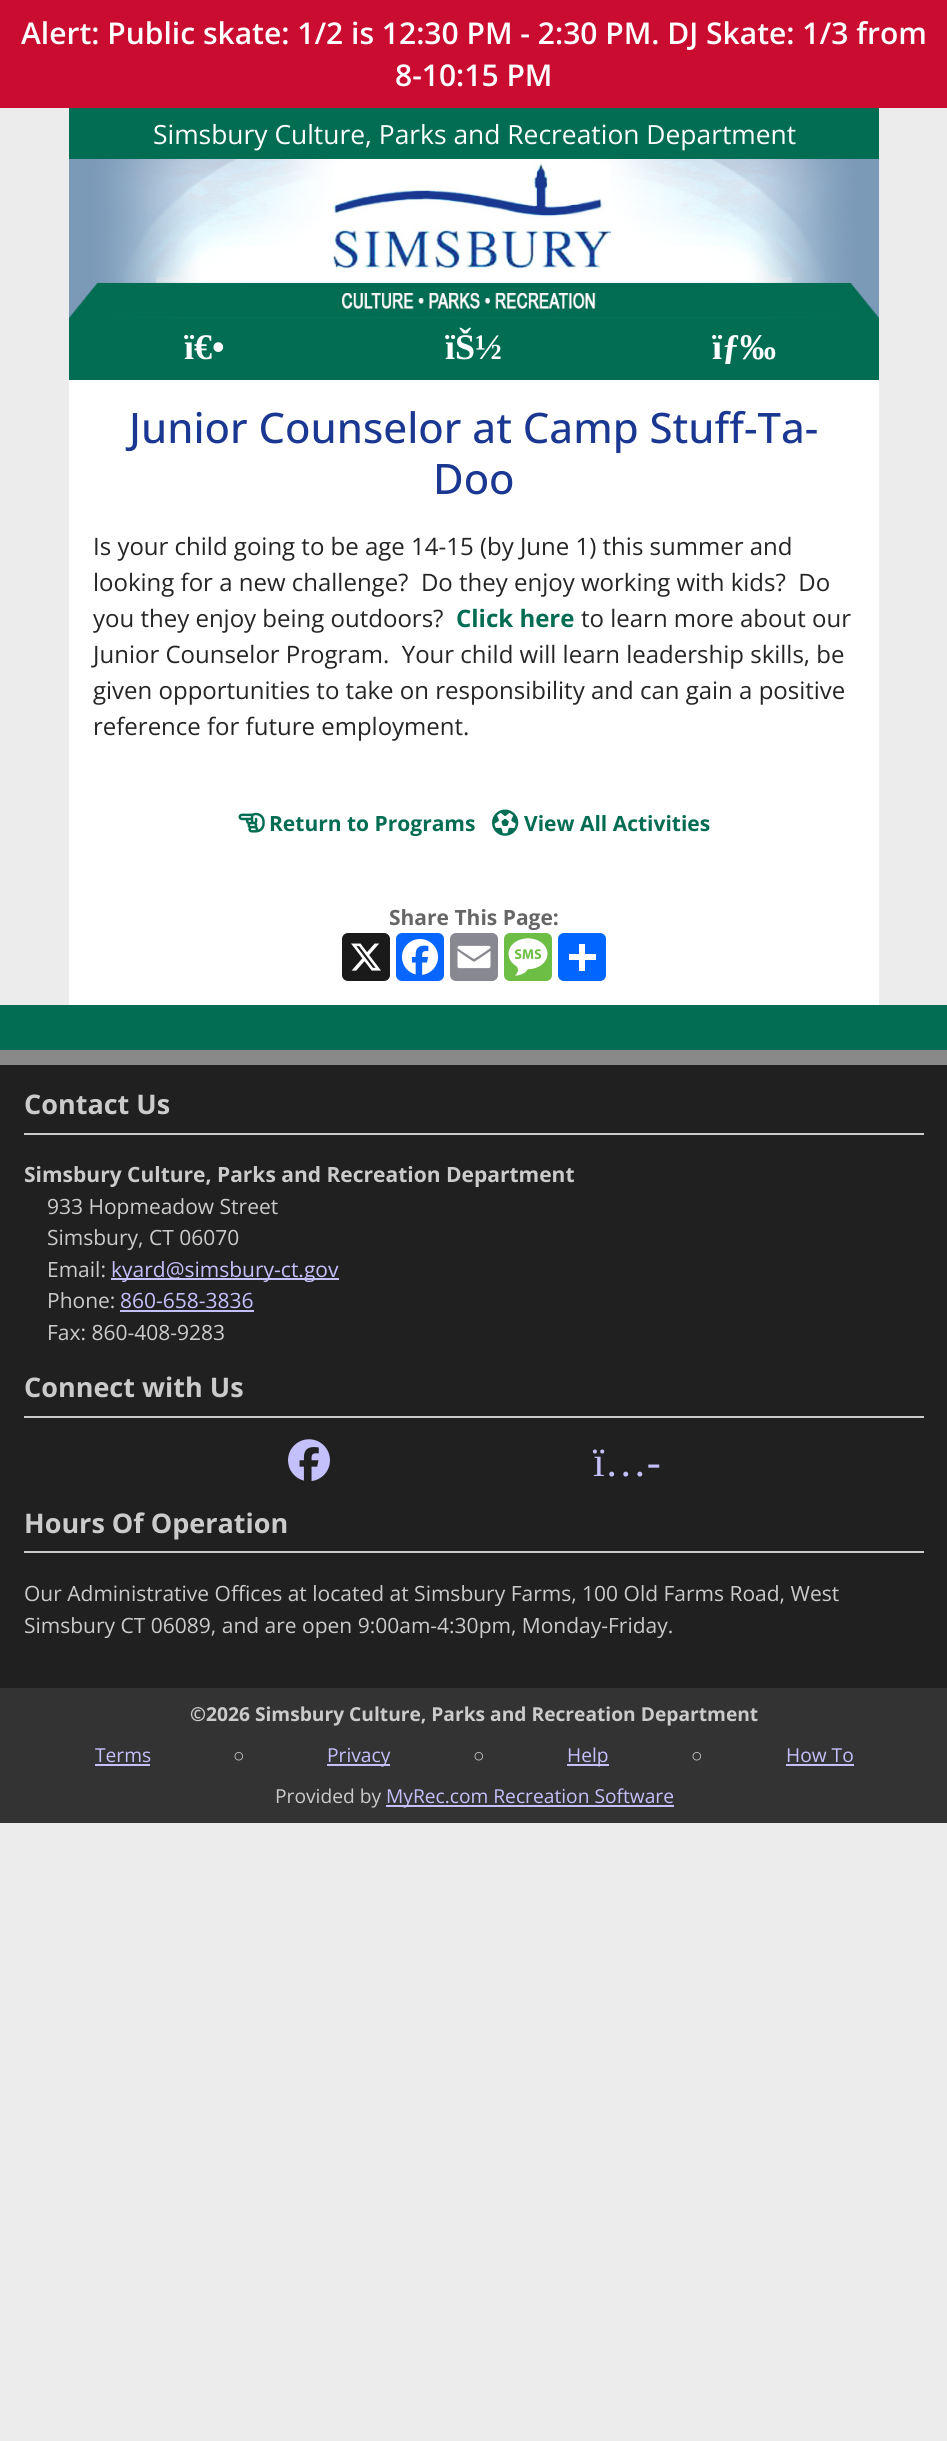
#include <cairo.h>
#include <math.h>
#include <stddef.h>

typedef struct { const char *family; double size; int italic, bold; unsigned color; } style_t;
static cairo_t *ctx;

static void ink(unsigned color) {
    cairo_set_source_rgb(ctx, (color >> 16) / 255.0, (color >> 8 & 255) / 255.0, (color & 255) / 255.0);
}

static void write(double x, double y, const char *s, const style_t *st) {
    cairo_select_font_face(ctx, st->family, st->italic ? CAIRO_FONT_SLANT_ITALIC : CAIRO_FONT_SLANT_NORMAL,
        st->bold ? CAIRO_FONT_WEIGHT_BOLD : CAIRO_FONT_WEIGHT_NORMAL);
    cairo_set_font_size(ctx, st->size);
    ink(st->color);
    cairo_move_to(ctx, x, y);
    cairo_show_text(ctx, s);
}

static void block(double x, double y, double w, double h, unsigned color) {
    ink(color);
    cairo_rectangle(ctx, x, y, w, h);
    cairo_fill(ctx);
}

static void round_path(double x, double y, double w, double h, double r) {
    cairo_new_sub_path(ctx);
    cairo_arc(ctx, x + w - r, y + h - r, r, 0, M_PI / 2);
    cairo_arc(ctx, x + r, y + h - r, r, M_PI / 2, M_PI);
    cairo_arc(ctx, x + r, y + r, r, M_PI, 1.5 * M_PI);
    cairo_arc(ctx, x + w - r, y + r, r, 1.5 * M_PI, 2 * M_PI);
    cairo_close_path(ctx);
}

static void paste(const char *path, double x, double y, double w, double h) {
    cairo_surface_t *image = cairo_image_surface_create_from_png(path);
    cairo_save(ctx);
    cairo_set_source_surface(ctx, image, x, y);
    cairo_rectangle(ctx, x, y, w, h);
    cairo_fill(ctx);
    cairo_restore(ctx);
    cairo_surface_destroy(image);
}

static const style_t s1 = {"Open Sans SemiBold", 30, 0, 0, 0xffffff};
static const style_t s2 = {"Open Sans", 26.4, 0, 0, 0xffffff};
static const style_t s3 = {"Liberation Serif", 36, 0, 1, 0xffffff};
static const style_t s4 = {"Open Sans Medium", 42, 0, 0, 0x1a3791};
static const style_t s5 = {"Open Sans", 24, 0, 0, 0x252525};
static const style_t s6 = {"Open Sans", 24, 0, 1, 0x026d53};
static const style_t s7 = {"Open Sans", 21, 0, 1, 0x026d53};
static const style_t s8 = {"Open Sans", 21, 0, 1, 0x666666};
static const style_t s9 = {"Open Sans", 27, 0, 1, 0xcbcbcb};
static const style_t s10 = {"Open Sans", 21, 0, 1, 0xcbcbcb};
static const style_t s11 = {"Open Sans", 21, 0, 0, 0xcbcbcb};
static const style_t s12 = {"Open Sans", 21, 0, 0, 0xc4c0fb};
static const style_t s13 = {"Liberation Serif", 42, 0, 0, 0xc4c0fb};
static const style_t s14 = {"Open Sans", 19.2, 0, 1, 0xcbcbcb};
static const style_t s15 = {"Open Sans", 19.2, 0, 0, 0xc4c0fb};
static const style_t s16 = {"Liberation Serif", 19.2, 0, 0, 0xcbcbcb};
static const style_t s17 = {"Open Sans", 19.2, 0, 0, 0xcbcbcb};

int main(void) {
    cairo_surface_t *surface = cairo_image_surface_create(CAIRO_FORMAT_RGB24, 947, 2441);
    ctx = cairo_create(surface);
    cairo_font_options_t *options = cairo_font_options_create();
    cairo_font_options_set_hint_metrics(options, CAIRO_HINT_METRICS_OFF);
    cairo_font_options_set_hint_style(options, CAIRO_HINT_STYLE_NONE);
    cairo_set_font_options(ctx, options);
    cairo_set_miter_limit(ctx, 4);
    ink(0xececec);
    cairo_paint(ctx);
    block(0, 0, 947, 108, 0xc90c2f);
    write(21, 44, "Alert: Public skate: 1/2 is 12:30 PM - 2:30 PM. DJ Skate: 1/3 from", &s1);
    write(395, 86, "8-10:15 PM", &s1);
    block(69, 380, 810, 625, 0xffffff);
    block(69, 108, 810, 51, 0x026d53);
    write(153, 144, "Simsbury Culture, Parks and Recreation Department", &s2);
    paste("pic1.png", 69, 159, 810, 159);
    block(69, 318, 810, 62, 0x026d53);
    write(184, 359, "ï€•", &s3);
    write(445, 359, "ïŠ½", &s3);
    write(712, 359, "ïƒ‰", &s3);
    write(129, 443, "Junior Counselor at Camp Stuff-Ta-", &s4);
    write(433, 494, "Doo", &s4);
    write(93, 555, "Is your child going to be age 14-15 (by June 1) this summer and", &s5);
    write(93, 591, "looking for a new challenge?  Do they enjoy working with kids?  Do", &s5);
    write(93, 627, "you they enjoy being outdoors?", &s5);
    write(456, 627, "Click here", &s6);
    write(581, 627, "to learn more about our", &s5);
    write(93, 663, "Junior Counselor Program.  Your child will learn leadership skills, be", &s5);
    write(93, 699, "given opportunities to take on responsibility and can gain a positive", &s5);
    write(93, 735, "reference for future employment.", &s5);
    paste("pic2.png", 238, 812, 27, 21);
    write(269, 831, "Return to Programs", &s7);
    paste("pic3.png", 492, 809, 27, 27);
    write(524, 831, "View All Activities", &s7);
    write(389, 925, "Share This Page:", &s8);
    ink(0x1a1a1a);
    round_path(342, 933, 48, 48, 6);
    cairo_fill(ctx);
    paste("pic4.png", 351, 943, 30, 28);
    ink(0x0866ff);
    round_path(396, 933, 48, 48, 6);
    cairo_fill(ctx);
    paste("pic5.png", 402, 939, 36, 36);
    ink(0x888990);
    round_path(450, 933, 48, 48, 6);
    cairo_fill(ctx);
    paste("pic6.png", 457, 945, 34, 24);
    ink(0x6cbe45);
    round_path(504, 933, 48, 48, 6);
    cairo_fill(ctx);
    paste("pic7.png", 508, 938, 40, 38);
    ink(0x0166ff);
    round_path(558, 933, 48, 48, 6);
    cairo_fill(ctx);
    block(579, 944, 6, 27, 0xffffff);
    block(569, 954, 27, 6, 0xffffff);
    block(0, 1005, 947, 45, 0x026d53);
    block(0, 1065, 947, 623, 0x202020);
    block(0, 1050, 947, 15, 0x898989);
    block(24, 1133, 900, 2, 0xcbcbcb);
    write(24, 1114, "Contact Us", &s9);
    write(24, 1182, "Simsbury Culture, Parks and Recreation Department", &s10);
    write(47, 1214, "933 Hopmeadow Street", &s11);
    write(47, 1245, "Simsbury, CT 06070", &s11);
    write(47, 1277, "Email:", &s11);
    block(111, 1278, 228, 2, 0xc4c0fb);
    write(111, 1277, "kyard@simsbury-ct.gov", &s12);
    write(47, 1308, "Phone:", &s11);
    write(120, 1308, "860-658-3836", &s12);
    block(120, 1310, 134, 2, 0xc4c0fb);
    write(47, 1340, "Fax: 860-408-9283", &s11);
    block(24, 1416, 900, 2, 0xcbcbcb);
    write(24, 1397, "Connect with Us", &s9);
    paste("pic8.png", 288, 1439, 42, 42);
    write(593, 1476, "ï…-", &s13);
    block(24, 1551, 900, 2, 0xcbcbcb);
    write(24, 1533, "Hours Of Operation", &s9);
    write(24, 1601, "Our Administrative Offices at located at Simsbury Farms, 100 Old Farms Road, West", &s11);
    write(24, 1633, "Simsbury CT 06089, and are open 9:00am-4:30pm, Monday-Friday.", &s11);
    block(0, 1688, 947, 135, 0x333333);
    write(190, 1721, "©2026 Simsbury Culture, Parks and Recreation Department", &s14);
    write(95, 1762, "Terms", &s15);
    block(95, 1764, 55, 2, 0xc4c0fb);
    write(233, 1762, "○", &s16);
    block(327, 1764, 63, 2, 0xc4c0fb);
    write(327, 1762, "Privacy", &s15);
    write(473, 1762, "○", &s16);
    block(567, 1764, 42, 2, 0xc4c0fb);
    write(567, 1762, "Help", &s15);
    write(691, 1762, "○", &s16);
    write(786, 1762, "How To", &s15);
    block(786, 1764, 68, 2, 0xc4c0fb);
    write(275, 1803, "Provided by", &s17);
    block(386, 1805, 288, 2, 0xc4c0fb);
    write(386, 1803, "MyRec.com Recreation Software", &s15);
    cairo_surface_write_to_png(surface, "screenshot.png");
    cairo_font_options_destroy(options);
    cairo_destroy(ctx);
    cairo_surface_destroy(surface);
    return 0;
}
